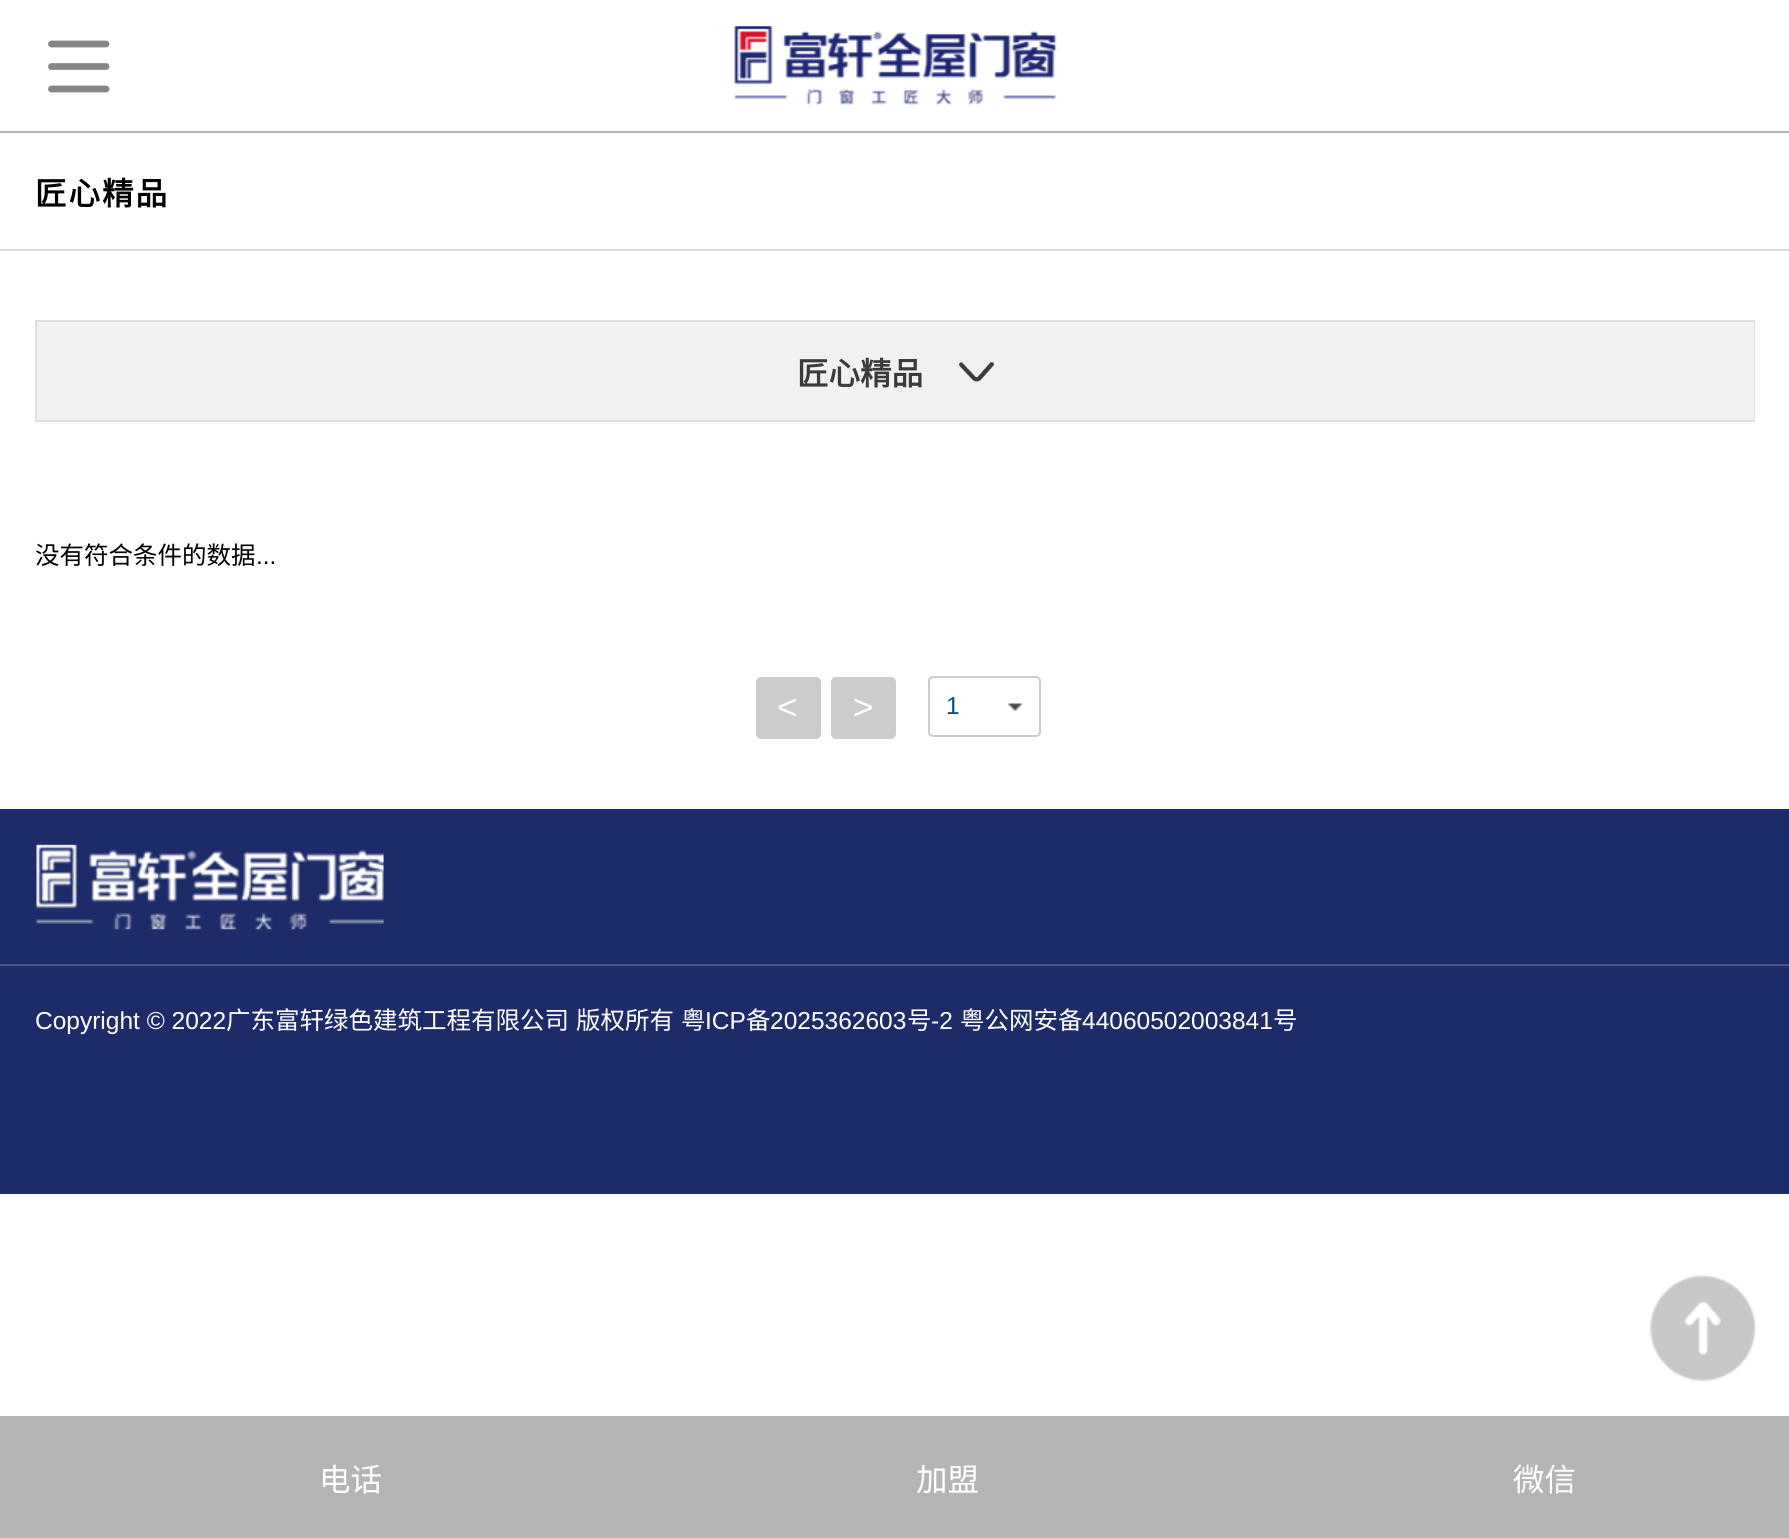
#include <cairo.h>
#include <math.h>
#include <stddef.h>

typedef struct { const char *family; double size; int italic, bold; unsigned color; } style_t;
static cairo_t *ctx;

static void ink(unsigned color) {
    cairo_set_source_rgb(ctx, (color >> 16) / 255.0, (color >> 8 & 255) / 255.0, (color & 255) / 255.0);
}

static void write(double x, double y, const char *s, const style_t *st) {
    cairo_select_font_face(ctx, st->family, st->italic ? CAIRO_FONT_SLANT_ITALIC : CAIRO_FONT_SLANT_NORMAL,
        st->bold ? CAIRO_FONT_WEIGHT_BOLD : CAIRO_FONT_WEIGHT_NORMAL);
    cairo_set_font_size(ctx, st->size);
    ink(st->color);
    cairo_move_to(ctx, x, y);
    cairo_show_text(ctx, s);
}

static void write_spaced(double x, double y, const char *s, double letter, double word) {
    cairo_move_to(ctx, x, y);
    while (*s) {
        char ch[5] = {0};
        int n = 0;
        do ch[n++] = *s++; while ((*s & 0xC0) == 0x80);
        cairo_show_text(ctx, ch);
        cairo_rel_move_to(ctx, letter + word * (*ch == ' '), 0);
    }
}

static void block(double x, double y, double w, double h, unsigned color) {
    ink(color);
    cairo_rectangle(ctx, x, y, w, h);
    cairo_fill(ctx);
}

static void round_path(double x, double y, double w, double h, double r) {
    cairo_new_sub_path(ctx);
    cairo_arc(ctx, x + w - r, y + h - r, r, 0, M_PI / 2);
    cairo_arc(ctx, x + r, y + h - r, r, M_PI / 2, M_PI);
    cairo_arc(ctx, x + r, y + r, r, M_PI, 1.5 * M_PI);
    cairo_arc(ctx, x + w - r, y + r, r, 1.5 * M_PI, 2 * M_PI);
    cairo_close_path(ctx);
}

static void paste(const char *path, double x, double y, double w, double h) {
    cairo_surface_t *image = cairo_image_surface_create_from_png(path);
    cairo_save(ctx);
    cairo_set_source_surface(ctx, image, x, y);
    cairo_rectangle(ctx, x, y, w, h);
    cairo_fill(ctx);
    cairo_restore(ctx);
    cairo_surface_destroy(image);
}

static const style_t s1 = {"Noto Sans CJK SC", 31.5, 0, 1, 0x3b3b3b};
static const style_t s2 = {"Noto Sans CJK SC", 24.5, 0, 0, 0x000000};
static const style_t s3 = {"Liberation Sans", 24.5, 0, 0, 0x000000};
static const style_t s4 = {"Liberation Sans", 35, 0, 0, 0xffffff};
static const style_t s5 = {"Liberation Sans", 24.5, 0, 0, 0x004d85};
static const style_t s6 = {"Liberation Sans", 24.5, 0, 0, 0xffffff};
static const style_t s7 = {"Noto Sans CJK SC", 24.5, 0, 0, 0xffffff};
static const style_t s8 = {"Noto Sans CJK SC", 31.5, 0, 0, 0xffffff};

int main(void) {
    cairo_surface_t *surface = cairo_image_surface_create(CAIRO_FORMAT_RGB24, 1789, 1538);
    ctx = cairo_create(surface);
    cairo_font_options_t *options = cairo_font_options_create();
    cairo_font_options_set_hint_metrics(options, CAIRO_HINT_METRICS_OFF);
    cairo_font_options_set_hint_style(options, CAIRO_HINT_STYLE_NONE);
    cairo_set_font_options(ctx, options);
    cairo_set_miter_limit(ctx, 4);
    ink(0xffffff);
    cairo_paint(ctx);
    block(0, 131, 1789, 2, 0xb1b5c8);
    cairo_new_path(ctx);
    cairo_move_to(ctx, 51.5, 44);
    cairo_line_to(ctx, 106, 44);
    cairo_move_to(ctx, 51.5, 66.5);
    cairo_line_to(ctx, 106, 66.5);
    cairo_move_to(ctx, 51.5, 89);
    cairo_line_to(ctx, 106, 89);
    ink(0x868686);
    cairo_set_line_width(ctx, 6.8);
    cairo_set_line_cap(ctx, CAIRO_LINE_CAP_ROUND);
    cairo_set_line_join(ctx, CAIRO_LINE_JOIN_ROUND);
    cairo_stroke(ctx);
    paste("pic1.png", 734, 26, 323, 79);
    block(0, 249, 1789, 2, 0xdadada);
    cairo_select_font_face(ctx, "Noto Sans CJK SC", CAIRO_FONT_SLANT_NORMAL, CAIRO_FONT_WEIGHT_BOLD);
    cairo_set_font_size(ctx, 31.5);
    ink(0x000000);
    write_spaced(35, 205, "匠心精品", 2, 0);
    cairo_rectangle(ctx, 36, 321, 1718, 100);
    ink(0xdfdfdf);
    cairo_set_line_width(ctx, 2);
    cairo_set_line_cap(ctx, CAIRO_LINE_CAP_BUTT);
    cairo_set_line_join(ctx, CAIRO_LINE_JOIN_MITER);
    cairo_stroke(ctx);
    block(37, 322, 1717, 98, 0xf1f1f1);
    write(797, 385, "匠心精品", &s1);
    paste("pic2.png", 958, 361, 36, 21);
    write(35, 564, "没有符合条件的数据", &s2);
    write(256, 564, "...", &s3);
    ink(0xcccccc);
    round_path(756, 677, 65, 62, 5);
    cairo_fill(ctx);
    write(777, 719, "<", &s4);
    ink(0xcccccc);
    round_path(831, 677, 65, 62, 5);
    cairo_fill(ctx);
    write(853, 719, ">", &s4);
    paste("pic3.png", 1008, 703, 14, 8);
    round_path(929, 677, 111, 59, 4);
    ink(0xcccccc);
    cairo_stroke(ctx);
    write(946, 714, "1", &s5);
    block(0, 809, 1789, 385, 0x1e2b69);
    paste("pic4.png", 36, 844, 348, 86);
    block(0, 964, 1789, 2, 0x4d5786);
    write(35, 1029, "Copyright © 2022", &s6);
    write(226, 1029, "广东富轩绿色建筑工程有限公司", &s7);
    write(576, 1029, "版权所有", &s7);
    write(681, 1029, "粤", &s7);
    write(705, 1029, "ICP", &s6);
    write(746, 1029, "备", &s7);
    write(770, 1029, "2025362603", &s6);
    write(907, 1029, "号", &s7);
    write(931, 1029, "-2", &s6);
    write(960, 1029, "粤公网安备", &s7);
    write(1082, 1029, "44060502003841", &s6);
    write(1273, 1029, "号", &s7);
    paste("pic5.png", 1650, 1275, 106, 106);
    block(0, 1416, 1789, 122, 0xb5b5b5);
    write(319, 1491, "电话", &s8);
    write(916, 1491, "加盟", &s8);
    write(1513, 1491, "微信", &s8);
    cairo_surface_write_to_png(surface, "screenshot.png");
    cairo_font_options_destroy(options);
    cairo_destroy(ctx);
    cairo_surface_destroy(surface);
    return 0;
}
